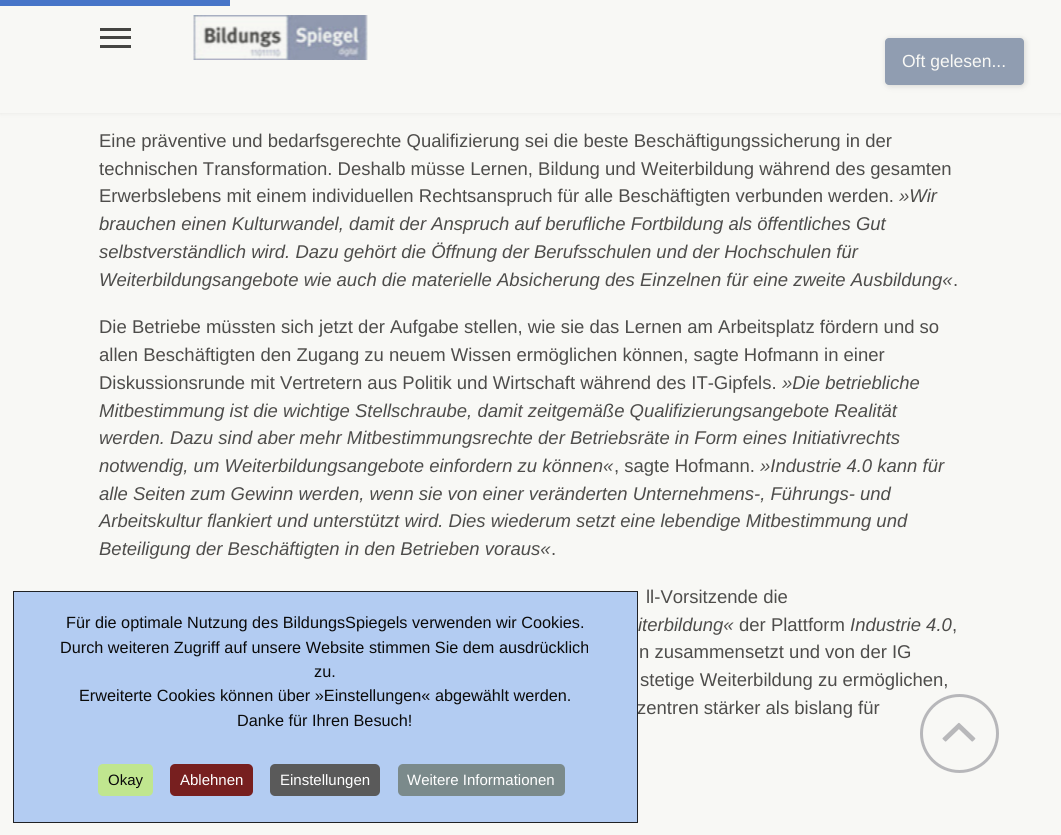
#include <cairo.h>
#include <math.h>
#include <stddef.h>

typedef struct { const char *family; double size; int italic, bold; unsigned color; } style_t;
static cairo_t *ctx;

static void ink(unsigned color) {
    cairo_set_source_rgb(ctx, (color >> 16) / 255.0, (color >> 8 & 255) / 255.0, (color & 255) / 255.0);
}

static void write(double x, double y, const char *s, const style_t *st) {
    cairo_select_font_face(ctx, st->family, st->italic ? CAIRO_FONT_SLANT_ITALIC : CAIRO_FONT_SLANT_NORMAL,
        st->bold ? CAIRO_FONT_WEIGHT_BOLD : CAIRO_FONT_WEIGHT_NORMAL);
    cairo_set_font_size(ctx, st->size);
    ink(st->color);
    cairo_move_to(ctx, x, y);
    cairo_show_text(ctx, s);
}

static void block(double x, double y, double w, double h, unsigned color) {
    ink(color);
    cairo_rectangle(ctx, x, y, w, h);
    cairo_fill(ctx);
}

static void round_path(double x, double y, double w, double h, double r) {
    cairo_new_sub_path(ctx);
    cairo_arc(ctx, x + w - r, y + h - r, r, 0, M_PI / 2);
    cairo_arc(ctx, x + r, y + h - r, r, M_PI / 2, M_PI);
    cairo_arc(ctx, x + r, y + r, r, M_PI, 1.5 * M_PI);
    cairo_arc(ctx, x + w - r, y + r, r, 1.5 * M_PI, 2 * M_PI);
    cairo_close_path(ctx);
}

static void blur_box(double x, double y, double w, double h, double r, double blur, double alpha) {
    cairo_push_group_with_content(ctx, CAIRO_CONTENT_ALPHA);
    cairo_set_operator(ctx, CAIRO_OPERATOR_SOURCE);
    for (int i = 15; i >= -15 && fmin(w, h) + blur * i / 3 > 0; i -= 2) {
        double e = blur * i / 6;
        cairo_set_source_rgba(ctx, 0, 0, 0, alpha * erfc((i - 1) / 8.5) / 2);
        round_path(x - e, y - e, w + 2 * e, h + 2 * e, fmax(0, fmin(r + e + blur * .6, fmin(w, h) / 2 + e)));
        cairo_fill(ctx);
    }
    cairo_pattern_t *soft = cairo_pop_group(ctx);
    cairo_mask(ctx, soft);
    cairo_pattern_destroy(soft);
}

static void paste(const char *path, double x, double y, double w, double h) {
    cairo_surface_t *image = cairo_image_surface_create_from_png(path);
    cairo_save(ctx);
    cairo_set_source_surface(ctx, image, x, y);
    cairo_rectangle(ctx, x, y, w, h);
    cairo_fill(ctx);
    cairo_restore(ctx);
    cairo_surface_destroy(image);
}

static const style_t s1 = {"Liberation Sans", 17.5, 0, 0, 0xf8f8f5};
static const style_t s2 = {"Liberation Sans", 18.5, 0, 0, 0x4e4d4b};
static const style_t s3 = {"Liberation Sans", 18.5, 1, 0, 0x4e4d4b};
static const style_t s4 = {"Liberation Sans", 16.25, 0, 0, 0x0a0a0a};
static const style_t s5 = {"Liberation Sans", 15, 0, 0, 0x0a0a0a};
static const style_t s6 = {"Liberation Sans", 15, 0, 0, 0xffffff};

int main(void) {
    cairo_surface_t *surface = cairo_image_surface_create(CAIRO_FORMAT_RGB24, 1061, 835);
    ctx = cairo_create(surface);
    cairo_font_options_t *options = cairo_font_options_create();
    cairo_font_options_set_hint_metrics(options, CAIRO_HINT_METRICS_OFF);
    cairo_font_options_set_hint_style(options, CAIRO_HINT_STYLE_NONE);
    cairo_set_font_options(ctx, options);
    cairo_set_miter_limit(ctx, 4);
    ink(0xf8f8f5);
    cairo_paint(ctx);
    ink(0x454542);
    blur_box(0, 0, 1061, 113, 0, 2.5, 0.1);
    block(0, 0, 1061, 113, 0xf8f8f5);
    block(0, 0, 230, 6, 0x4775c8);
    ink(0x454542);
    blur_box(886, 39, 139, 47, 4, 3, 0.2);
    ink(0x909db1);
    round_path(885, 38, 139, 47, 4);
    cairo_fill(ctx);
    write(902, 67, "Oft gelesen...", &s1);
    block(100, 28, 31, 3, 0x454542);
    block(100, 36, 31, 3, 0x454542);
    block(100, 45, 31, 3, 0x454542);
    paste("pic1.png", 193, 15, 175, 45);
    write(99, 147, "Eine präventive und bedarfsgerechte Qualifizierung sei die beste Beschäftigungssicherung in der", &s2);
    write(99, 175, "technischen Transformation. Deshalb müsse Lernen, Bildung und Weiterbildung während des gesamten", &s2);
    write(99, 202, "Erwerbslebens mit einem individuellen Rechtsanspruch für alle Beschäftigten verbunden werden.", &s2);
    write(899, 202, "»Wir", &s3);
    write(99, 230, "brauchen einen Kulturwandel, damit der Anspruch auf berufliche Fortbildung als öffentliches Gut", &s3);
    write(99, 258, "selbstverständlich wird. Dazu gehört die Öffnung der Berufsschulen und der Hochschulen für", &s3);
    write(99, 286, "Weiterbildungsangebote wie auch die materielle Absicherung des Einzelnen für eine zweite Ausbildung«", &s3);
    write(953, 286, ".", &s2);
    write(99, 333, "Die Betriebe müssten sich jetzt der Aufgabe stellen, wie sie das Lernen am Arbeitsplatz fördern und so", &s2);
    write(99, 361, "allen Beschäftigten den Zugang zu neuem Wissen ermöglichen können, sagte Hofmann in einer", &s2);
    write(99, 389, "Diskussionsrunde mit Vertretern aus Politik und Wirtschaft während des IT-Gipfels.", &s2);
    write(782, 389, "»Die betriebliche", &s3);
    write(99, 417, "Mitbestimmung ist die wichtige Stellschraube, damit zeitgemäße Qualifizierungsangebote Realität", &s3);
    write(99, 444, "werden. Dazu sind aber mehr Mitbestimmungsrechte der Betriebsräte in Form eines Initiativrechts", &s3);
    write(99, 472, "notwendig, um Weiterbildungsangebote einfordern zu können«", &s3);
    write(614, 472, ", sagte Hofmann.", &s2);
    write(760, 472, "»Industrie 4.0 kann für", &s3);
    write(99, 500, "alle Seiten zum Gewinn werden, wenn sie von einer veränderten Unternehmens-, Führungs- und", &s3);
    write(99, 527, "Arbeitskultur flankiert und unterstützt wird. Dies wiederum setzt eine lebendige Mitbestimmung und", &s3);
    write(99, 555, "Beteiligung der Beschäftigten in den Betrieben voraus«", &s3);
    write(551, 555, ".", &s2);
    write(646, 603, "ll-Vorsitzende die", &s2);
    write(638, 631, "iterbildung«", &s3);
    write(739, 631, "der Plattform", &s2);
    write(850, 631, "Industrie 4.0", &s3);
    write(952, 631, ",", &s2);
    write(639, 658, "n zusammensetzt und von der IG", &s2);
    write(640, 686, "stetige Weiterbildung zu ermöglichen,", &s2);
    write(637, 714, "zentren stärker als bislang für", &s2);
    ink(0xb3ccf2);
    cairo_rectangle(ctx, 13.5, 591.5, 624, 231);
    cairo_fill_preserve(ctx);
    ink(0x202226);
    cairo_set_line_width(ctx, 1);
    cairo_stroke(ctx);
    write(66, 628, "Für die optimale Nutzung des BildungsSpiegels verwenden wir Cookies.", &s4);
    write(60, 653, "Durch weiteren Zugriff auf unsere Website stimmen Sie dem ausdrücklich", &s4);
    write(314, 677, "zu.", &s4);
    write(79, 701, "Erweiterte Cookies können über »Einstellungen« abgewählt werden.", &s4);
    write(237, 726, "Danke für Ihren Besuch!", &s4);
    ink(0xc0e68f);
    round_path(98, 764, 55, 32, 5);
    cairo_fill(ctx);
    write(108, 785, "Okay", &s5);
    ink(0x771f1f);
    round_path(170, 764, 83, 32, 5);
    cairo_fill(ctx);
    write(180, 785, "Ablehnen", &s6);
    ink(0x5a5a5a);
    round_path(270, 764, 110, 32, 5);
    cairo_fill(ctx);
    write(280, 785, "Einstellungen", &s6);
    ink(0x7b8a8b);
    round_path(398, 764, 167, 32, 5);
    cairo_fill(ctx);
    write(407, 785, "Weitere Informationen", &s6);
    cairo_new_path(ctx);
    cairo_arc(ctx, 959.5, 733.5, 38, 0, 2 * M_PI);
    ink(0xb7b7ba);
    cairo_set_line_width(ctx, 3);
    cairo_stroke(ctx);
    paste("pic2.png", 942, 722, 34, 20);
    cairo_surface_write_to_png(surface, "screenshot.png");
    cairo_font_options_destroy(options);
    cairo_destroy(ctx);
    cairo_surface_destroy(surface);
    return 0;
}
